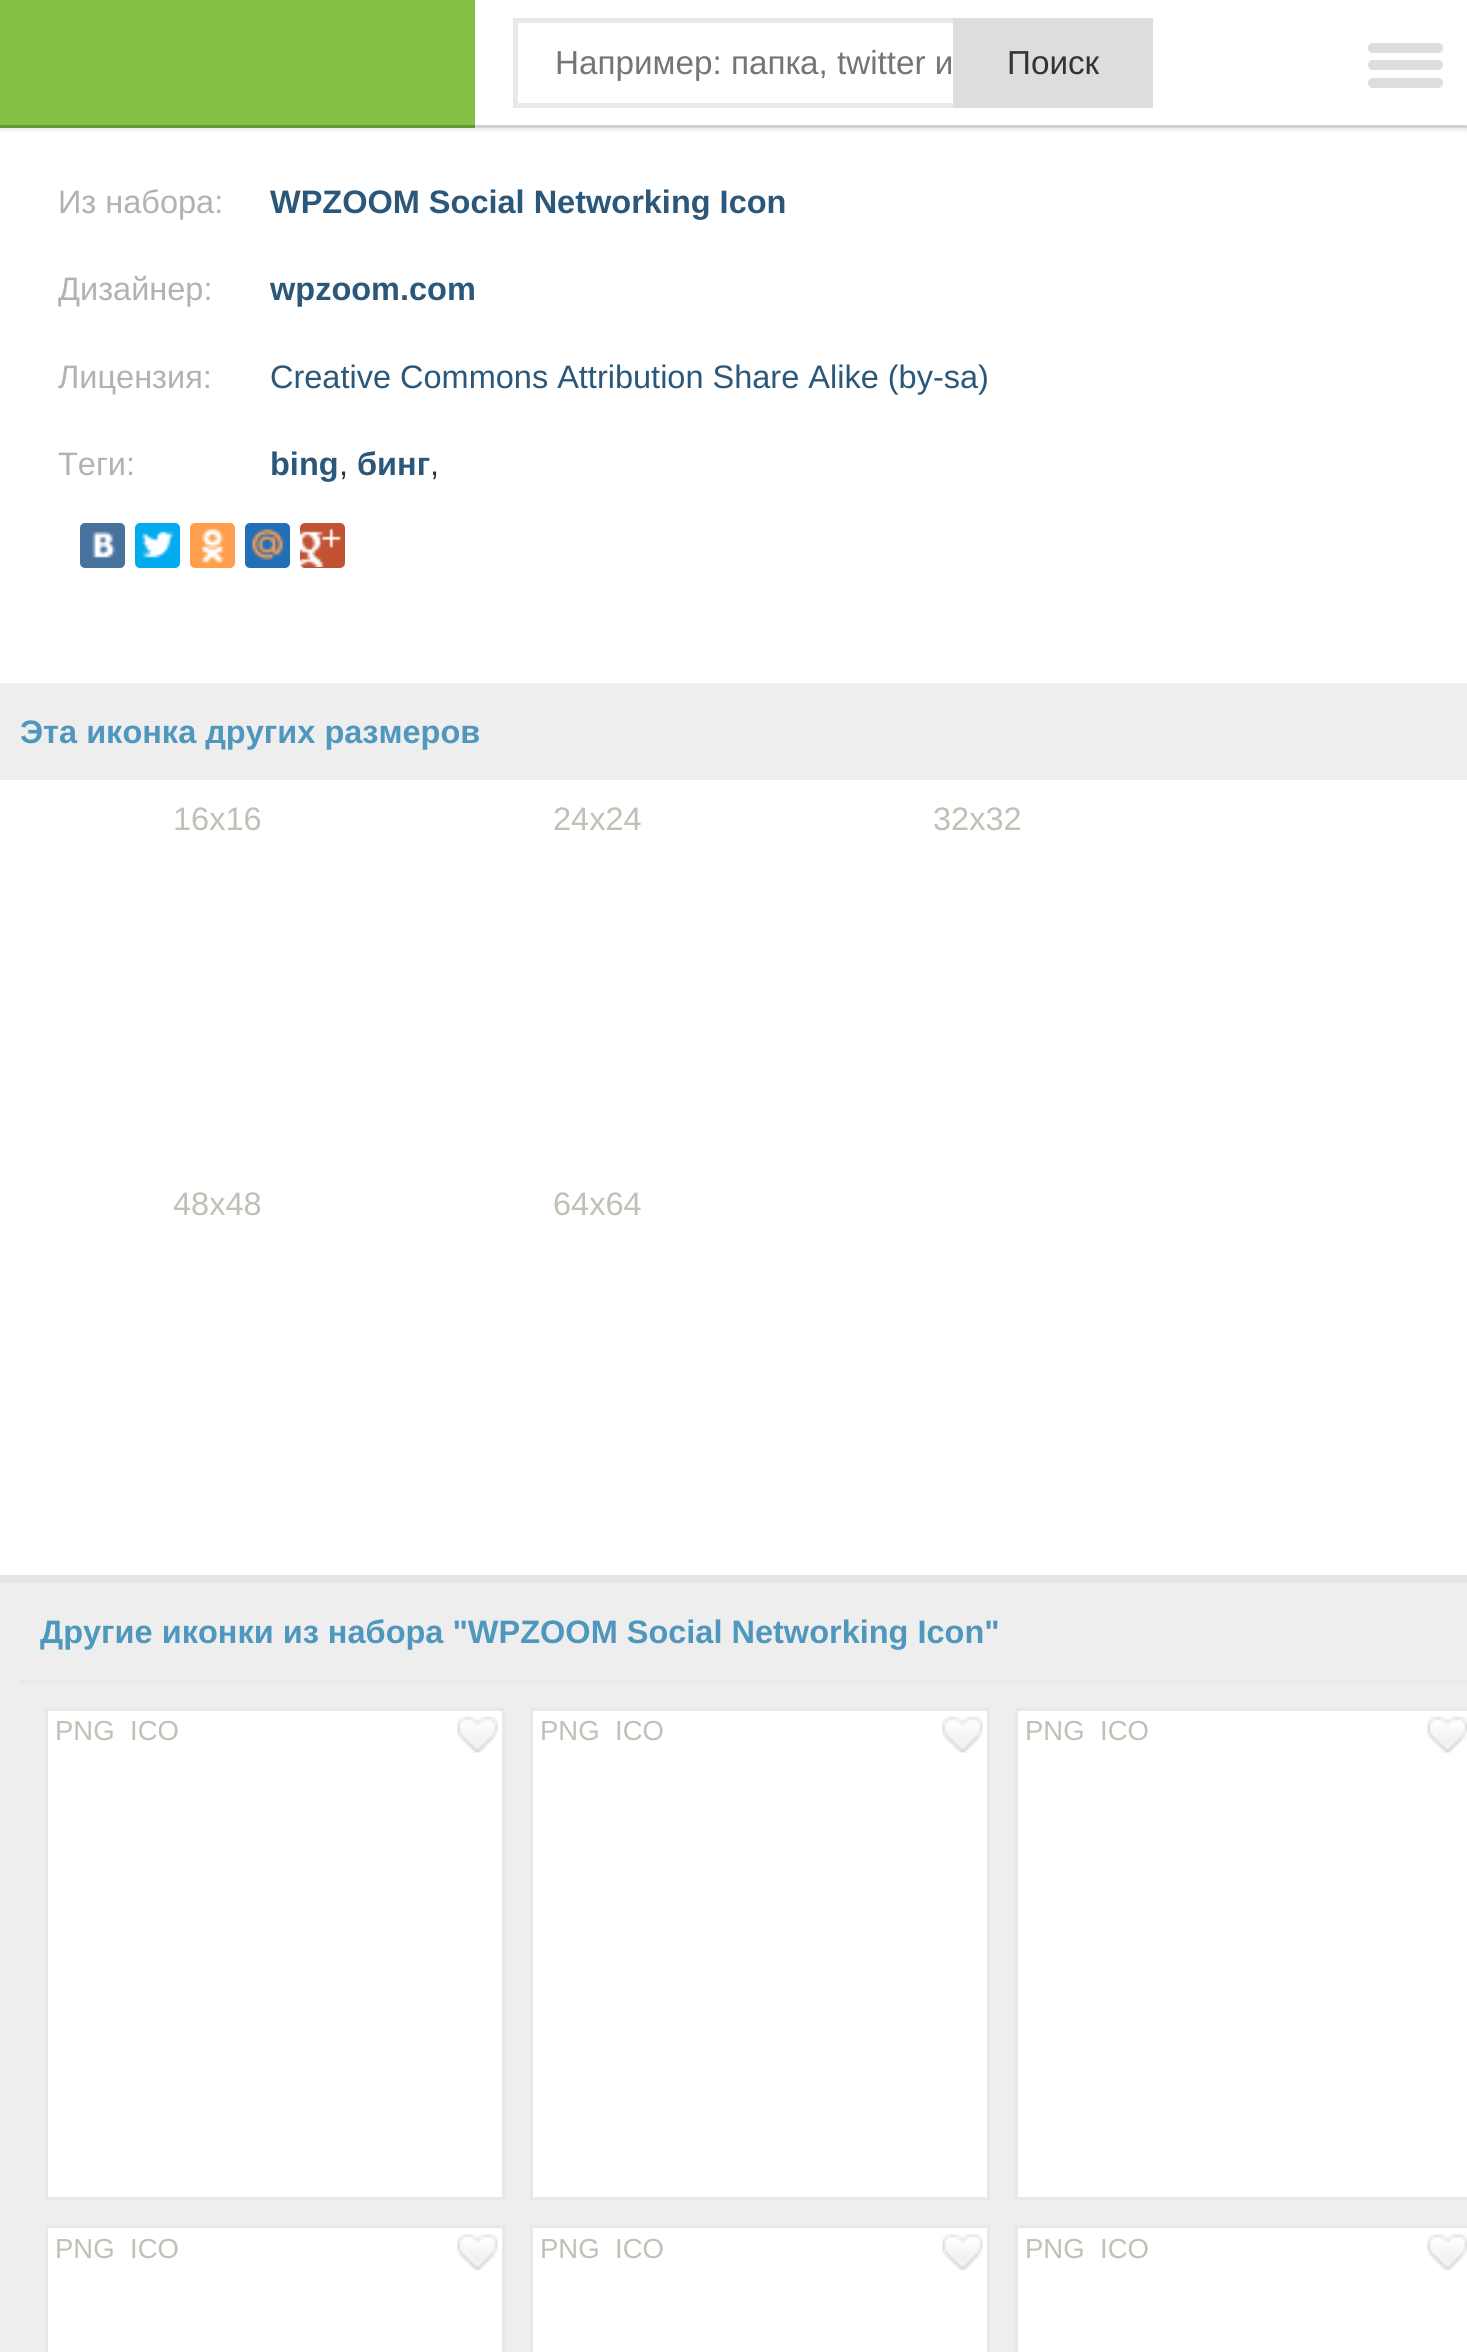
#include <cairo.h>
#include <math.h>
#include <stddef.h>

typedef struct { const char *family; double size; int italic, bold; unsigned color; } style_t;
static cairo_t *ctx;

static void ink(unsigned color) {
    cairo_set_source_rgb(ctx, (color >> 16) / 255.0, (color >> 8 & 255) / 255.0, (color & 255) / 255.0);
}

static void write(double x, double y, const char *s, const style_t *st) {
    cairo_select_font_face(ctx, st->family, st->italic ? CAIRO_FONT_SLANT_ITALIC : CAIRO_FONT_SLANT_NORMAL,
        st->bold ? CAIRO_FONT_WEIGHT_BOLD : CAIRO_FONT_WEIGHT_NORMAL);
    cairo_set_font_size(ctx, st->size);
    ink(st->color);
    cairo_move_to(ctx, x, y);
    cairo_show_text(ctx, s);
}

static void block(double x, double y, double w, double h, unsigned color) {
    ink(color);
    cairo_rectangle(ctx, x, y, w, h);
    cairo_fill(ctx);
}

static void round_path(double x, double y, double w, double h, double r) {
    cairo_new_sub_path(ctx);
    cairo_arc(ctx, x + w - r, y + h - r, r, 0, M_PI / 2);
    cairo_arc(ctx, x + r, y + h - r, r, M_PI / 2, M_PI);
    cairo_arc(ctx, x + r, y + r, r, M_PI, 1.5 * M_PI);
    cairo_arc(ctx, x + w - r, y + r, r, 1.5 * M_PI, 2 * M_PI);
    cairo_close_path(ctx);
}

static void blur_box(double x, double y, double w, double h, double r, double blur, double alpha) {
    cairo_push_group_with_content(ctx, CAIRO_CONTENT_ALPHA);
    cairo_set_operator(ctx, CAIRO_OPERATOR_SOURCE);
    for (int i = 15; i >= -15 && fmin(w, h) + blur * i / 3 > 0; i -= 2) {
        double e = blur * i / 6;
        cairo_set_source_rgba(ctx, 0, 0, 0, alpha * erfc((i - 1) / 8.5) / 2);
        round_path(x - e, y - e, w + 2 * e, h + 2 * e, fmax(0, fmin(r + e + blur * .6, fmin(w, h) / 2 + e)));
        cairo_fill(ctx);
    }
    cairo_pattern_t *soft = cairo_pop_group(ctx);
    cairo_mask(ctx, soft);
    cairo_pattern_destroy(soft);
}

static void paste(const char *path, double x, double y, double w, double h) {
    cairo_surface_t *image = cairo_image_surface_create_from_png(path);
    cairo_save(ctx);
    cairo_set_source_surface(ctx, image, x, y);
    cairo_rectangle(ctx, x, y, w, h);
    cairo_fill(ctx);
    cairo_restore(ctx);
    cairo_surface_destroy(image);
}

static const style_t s1 = {"Liberation Sans", 33.25, 0, 0, 0x757575};
static const style_t s2 = {"Liberation Sans", 33.25, 0, 0, 0x333333};
static const style_t s3 = {"Liberation Sans", 32.5, 0, 0, 0xb2b2b2};
static const style_t s4 = {"Liberation Sans", 32.5, 0, 1, 0x2b587a};
static const style_t s5 = {"Liberation Sans", 32.5, 0, 0, 0x2b587a};
static const style_t s6 = {"Liberation Sans", 32.5, 0, 0, 0x333333};
static const style_t s7 = {"Liberation Sans", 32.5, 0, 1, 0x4f97bd};
static const style_t s8 = {"Liberation Sans", 32.5, 0, 0, 0xc0c0b5};
static const style_t s9 = {"Liberation Sans", 27.5, 0, 0, 0xc0c0b5};

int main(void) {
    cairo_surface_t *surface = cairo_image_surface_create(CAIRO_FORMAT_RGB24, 1467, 2352);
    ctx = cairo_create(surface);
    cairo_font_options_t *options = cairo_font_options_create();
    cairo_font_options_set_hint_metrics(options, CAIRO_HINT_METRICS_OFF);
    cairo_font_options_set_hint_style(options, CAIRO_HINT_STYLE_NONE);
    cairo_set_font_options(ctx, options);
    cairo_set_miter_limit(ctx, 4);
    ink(0xeeeeee);
    cairo_paint(ctx);
    block(0, 125, 1467, 558, 0xffffff);
    cairo_set_source_rgba(ctx, 0, 0, 0, 0.1);
    cairo_new_path(ctx);
    cairo_move_to(ctx, 0, 125);
    cairo_line_to(ctx, 0, 128);
    cairo_line_to(ctx, 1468, 128);
    cairo_line_to(ctx, 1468, 3);
    cairo_line_to(ctx, 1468, 125);
    cairo_close_path(ctx);
    cairo_fill(ctx);
    ink(0x000000);
    blur_box(0, 5, 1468, 125, 0, 2.5, 0.1);
    block(475, 0, 992, 125, 0xffffff);
    block(0, 0, 475, 125, 0x84c044);
    block(0, 125, 475, 3, 0x669731);
    cairo_rectangle(ctx, 515.5, 20.5, 560, 85);
    ink(0xe9e9e9);
    cairo_set_line_width(ctx, 5);
    cairo_stroke(ctx);
    write(555, 74, "Например: папка, twitter и", &s1);
    block(953, 18, 200, 90, 0xdddddd);
    write(1007, 74, "Поиск", &s2);
    ink(0xdddddd);
    round_path(1368, 43, 75, 10, 5);
    cairo_fill(ctx);
    round_path(1368, 60, 75, 10, 5);
    cairo_fill(ctx);
    round_path(1368, 78, 75, 10, 5);
    cairo_fill(ctx);
    write(58, 213, "Из набора:", &s3);
    write(270, 213, "WPZOOM Social Networking Icon", &s4);
    write(58, 300, "Дизайнер:", &s3);
    write(270, 300, "wpzoom.com", &s4);
    write(58, 388, "Лицензия:", &s3);
    write(270, 388, "Creative Commons Attribution Share Alike (by-sa)", &s5);
    write(58, 475, "Теги:", &s3);
    write(270, 475, "bing", &s4);
    write(339, 475, ",", &s6);
    write(357, 475, "бинг", &s4);
    write(430, 475, ",", &s6);
    ink(0x48729e);
    round_path(80, 523, 45, 45, 5);
    cairo_fill(ctx);
    paste("pic1.png", 92, 531, 24, 27);
    ink(0x00aced);
    round_path(135, 523, 45, 45, 5);
    cairo_fill(ctx);
    paste("pic2.png", 141, 531, 33, 27);
    ink(0xff9f4d);
    round_path(190, 523, 45, 45, 5);
    cairo_fill(ctx);
    paste("pic3.png", 201, 528, 23, 35);
    ink(0x226eb7);
    round_path(245, 523, 45, 45, 5);
    cairo_fill(ctx);
    paste("pic4.png", 251, 528, 33, 33);
    ink(0xc25234);
    round_path(300, 523, 45, 45, 5);
    cairo_fill(ctx);
    paste("pic5.png", 300, 528, 41, 39);
    block(0, 780, 1467, 795, 0xffffff);
    block(0, 1575, 1467, 8, 0xe6e6e6);
    write(20, 743, "Эта иконка других размеров", &s7);
    write(173, 830, "16x16", &s8);
    write(553, 830, "24x24", &s8);
    write(933, 830, "32x32", &s8);
    write(173, 1215, "48x48", &s8);
    write(553, 1215, "64x64", &s8);
    block(20, 1680, 1447, 3, 0xe9e9e9);
    write(40, 1643, "Другие иконки из набора \"WPZOOM Social Networking Icon\"", &s7);
    ink(0xffffff);
    cairo_rectangle(ctx, 46.5, 1709.5, 457, 489);
    cairo_fill_preserve(ctx);
    ink(0xe8e8e8);
    cairo_set_line_width(ctx, 3);
    cairo_stroke(ctx);
    write(55, 1740, "PNG", &s9);
    write(130, 1740, "ICO", &s9);
    paste("pic6.png", 457, 1716, 41, 37);
    ink(0xffffff);
    cairo_rectangle(ctx, 531.5, 1709.5, 457, 489);
    cairo_fill_preserve(ctx);
    ink(0xe8e8e8);
    cairo_stroke(ctx);
    write(540, 1740, "PNG", &s9);
    write(615, 1740, "ICO", &s9);
    paste("pic7.png", 942, 1716, 41, 37);
    ink(0xffffff);
    cairo_rectangle(ctx, 1016.5, 1709.5, 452, 489);
    cairo_fill_preserve(ctx);
    ink(0xe8e8e8);
    cairo_stroke(ctx);
    write(1025, 1740, "PNG", &s9);
    write(1100, 1740, "ICO", &s9);
    paste("pic8.png", 1427, 1716, 40, 37);
    ink(0xffffff);
    cairo_rectangle(ctx, 46.5, 2226.5, 457, 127);
    cairo_fill_preserve(ctx);
    ink(0xe8e8e8);
    cairo_stroke(ctx);
    write(55, 2258, "PNG", &s9);
    write(130, 2258, "ICO", &s9);
    paste("pic9.png", 457, 2234, 41, 37);
    ink(0xffffff);
    cairo_rectangle(ctx, 531.5, 2226.5, 457, 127);
    cairo_fill_preserve(ctx);
    ink(0xe8e8e8);
    cairo_stroke(ctx);
    write(540, 2258, "PNG", &s9);
    write(615, 2258, "ICO", &s9);
    paste("pic10.png", 942, 2234, 41, 37);
    ink(0xffffff);
    cairo_rectangle(ctx, 1016.5, 2226.5, 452, 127);
    cairo_fill_preserve(ctx);
    ink(0xe8e8e8);
    cairo_stroke(ctx);
    write(1025, 2258, "PNG", &s9);
    write(1100, 2258, "ICO", &s9);
    paste("pic11.png", 1427, 2234, 40, 37);
    cairo_surface_write_to_png(surface, "screenshot.png");
    cairo_font_options_destroy(options);
    cairo_destroy(ctx);
    cairo_surface_destroy(surface);
    return 0;
}
